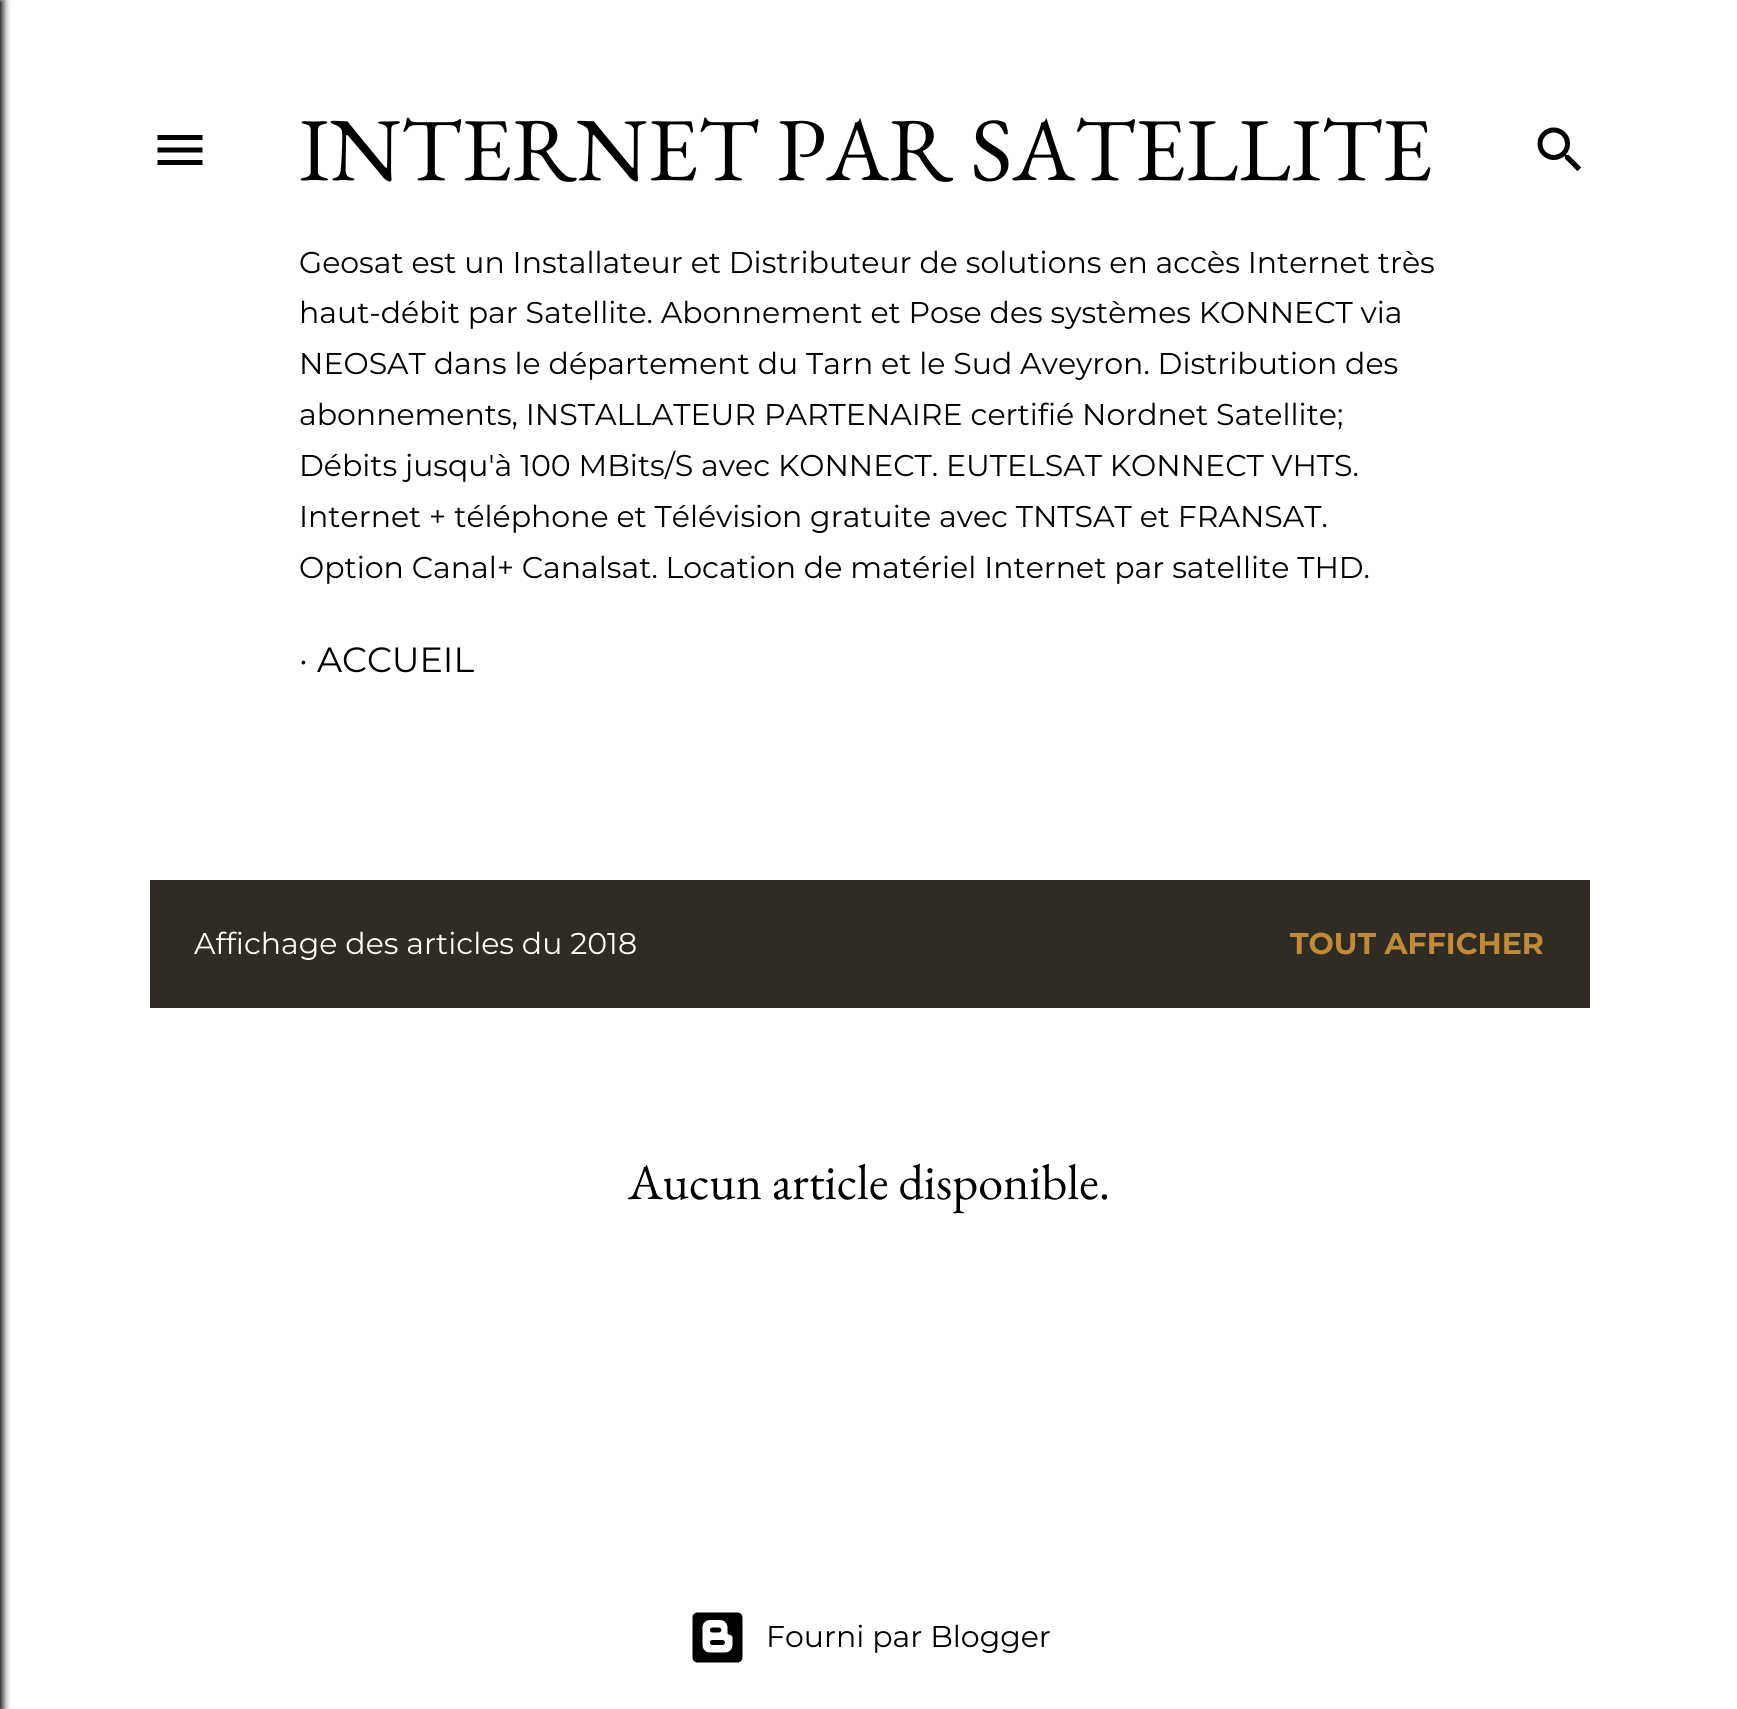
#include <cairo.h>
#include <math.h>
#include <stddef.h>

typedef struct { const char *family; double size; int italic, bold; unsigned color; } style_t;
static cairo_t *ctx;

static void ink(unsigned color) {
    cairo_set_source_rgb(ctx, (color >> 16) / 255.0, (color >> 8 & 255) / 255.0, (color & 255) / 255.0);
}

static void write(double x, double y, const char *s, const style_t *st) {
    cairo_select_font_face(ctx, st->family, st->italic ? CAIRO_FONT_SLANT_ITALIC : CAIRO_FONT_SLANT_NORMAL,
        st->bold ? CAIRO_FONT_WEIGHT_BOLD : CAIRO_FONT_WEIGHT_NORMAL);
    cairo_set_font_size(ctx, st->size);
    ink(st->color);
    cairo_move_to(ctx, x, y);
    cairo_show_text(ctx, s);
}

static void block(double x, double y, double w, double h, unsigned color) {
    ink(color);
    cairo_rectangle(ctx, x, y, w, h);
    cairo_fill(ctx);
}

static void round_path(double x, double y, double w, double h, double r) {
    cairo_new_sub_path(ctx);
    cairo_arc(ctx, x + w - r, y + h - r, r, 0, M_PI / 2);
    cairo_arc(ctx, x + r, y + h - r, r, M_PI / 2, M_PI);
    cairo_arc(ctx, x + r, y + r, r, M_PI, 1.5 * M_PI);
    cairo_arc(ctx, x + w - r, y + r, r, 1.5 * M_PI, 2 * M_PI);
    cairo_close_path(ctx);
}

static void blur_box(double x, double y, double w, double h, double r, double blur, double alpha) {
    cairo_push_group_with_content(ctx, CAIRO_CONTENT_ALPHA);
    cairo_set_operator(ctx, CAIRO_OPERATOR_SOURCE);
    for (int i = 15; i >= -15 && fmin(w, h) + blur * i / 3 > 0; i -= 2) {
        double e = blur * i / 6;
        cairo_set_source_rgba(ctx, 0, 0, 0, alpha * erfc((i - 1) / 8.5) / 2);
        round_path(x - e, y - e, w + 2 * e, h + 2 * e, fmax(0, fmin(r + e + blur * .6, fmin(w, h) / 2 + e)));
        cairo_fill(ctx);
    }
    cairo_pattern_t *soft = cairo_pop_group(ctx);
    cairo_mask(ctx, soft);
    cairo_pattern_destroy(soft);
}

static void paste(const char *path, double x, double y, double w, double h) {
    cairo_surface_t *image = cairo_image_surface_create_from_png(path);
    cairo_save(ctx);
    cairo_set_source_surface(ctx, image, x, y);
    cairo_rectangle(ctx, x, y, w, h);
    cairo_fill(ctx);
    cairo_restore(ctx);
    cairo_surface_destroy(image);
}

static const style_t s1 = {"EB Garamond", 90, 0, 0, 0x000000};
static const style_t s2 = {"Montserrat", 30, 0, 0, 0x000000};
static const style_t s3 = {"Montserrat", 35, 0, 0, 0x000000};
static const style_t s4 = {"Montserrat", 30, 0, 0, 0xffffff};
static const style_t s5 = {"Montserrat", 30, 0, 1, 0xbf8b38};
static const style_t s6 = {"EB Garamond", 50, 0, 0, 0x000000};

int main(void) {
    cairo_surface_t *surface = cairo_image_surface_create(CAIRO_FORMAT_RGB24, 1737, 1709);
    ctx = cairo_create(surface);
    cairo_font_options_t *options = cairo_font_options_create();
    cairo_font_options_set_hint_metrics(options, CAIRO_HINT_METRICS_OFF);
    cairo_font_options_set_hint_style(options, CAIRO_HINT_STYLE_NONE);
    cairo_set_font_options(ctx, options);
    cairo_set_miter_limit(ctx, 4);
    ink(0xffffff);
    cairo_paint(ctx);
    ink(0x000000);
    blur_box(-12, 0, 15, 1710, 0, 4, 1);
    paste("pic1.png", 157, 135, 46, 30);
    write(299, 180, "INTERNET PAR SATELLITE", &s1);
    write(299, 273, "Geosat est un Installateur et Distributeur de solutions en accès Internet très", &s2);
    write(299, 323, "haut-débit par Satellite. Abonnement et Pose des systèmes KONNECT via", &s2);
    write(299, 374, "NEOSAT dans le département du Tarn et le Sud Aveyron. Distribution des", &s2);
    write(299, 425, "abonnements, INSTALLATEUR PARTENAIRE certifié Nordnet Satellite;", &s2);
    write(299, 476, "Débits jusqu'à 100 MBits/S avec KONNECT. EUTELSAT KONNECT VHTS.", &s2);
    write(299, 527, "Internet + téléphone et Télévision gratuite avec TNTSAT et FRANSAT.", &s2);
    write(299, 578, "Option Canal+ Canalsat. Location de matériel Internet par satellite THD.", &s2);
    write(299, 672, "· ACCUEIL", &s3);
    paste("pic2.png", 1537, 127, 45, 45);
    block(150, 880, 1440, 128, 0x302c24);
    write(194, 954, "Affichage des articles du 2018", &s4);
    write(1290, 954, "TOUT AFFICHER", &s5);
    write(628, 1199, "Aucun article disponible.", &s6);
    paste("pic3.png", 692, 1612, 51, 51);
    write(766, 1647, "Fourni par Blogger", &s2);
    cairo_surface_write_to_png(surface, "screenshot.png");
    cairo_font_options_destroy(options);
    cairo_destroy(ctx);
    cairo_surface_destroy(surface);
    return 0;
}
